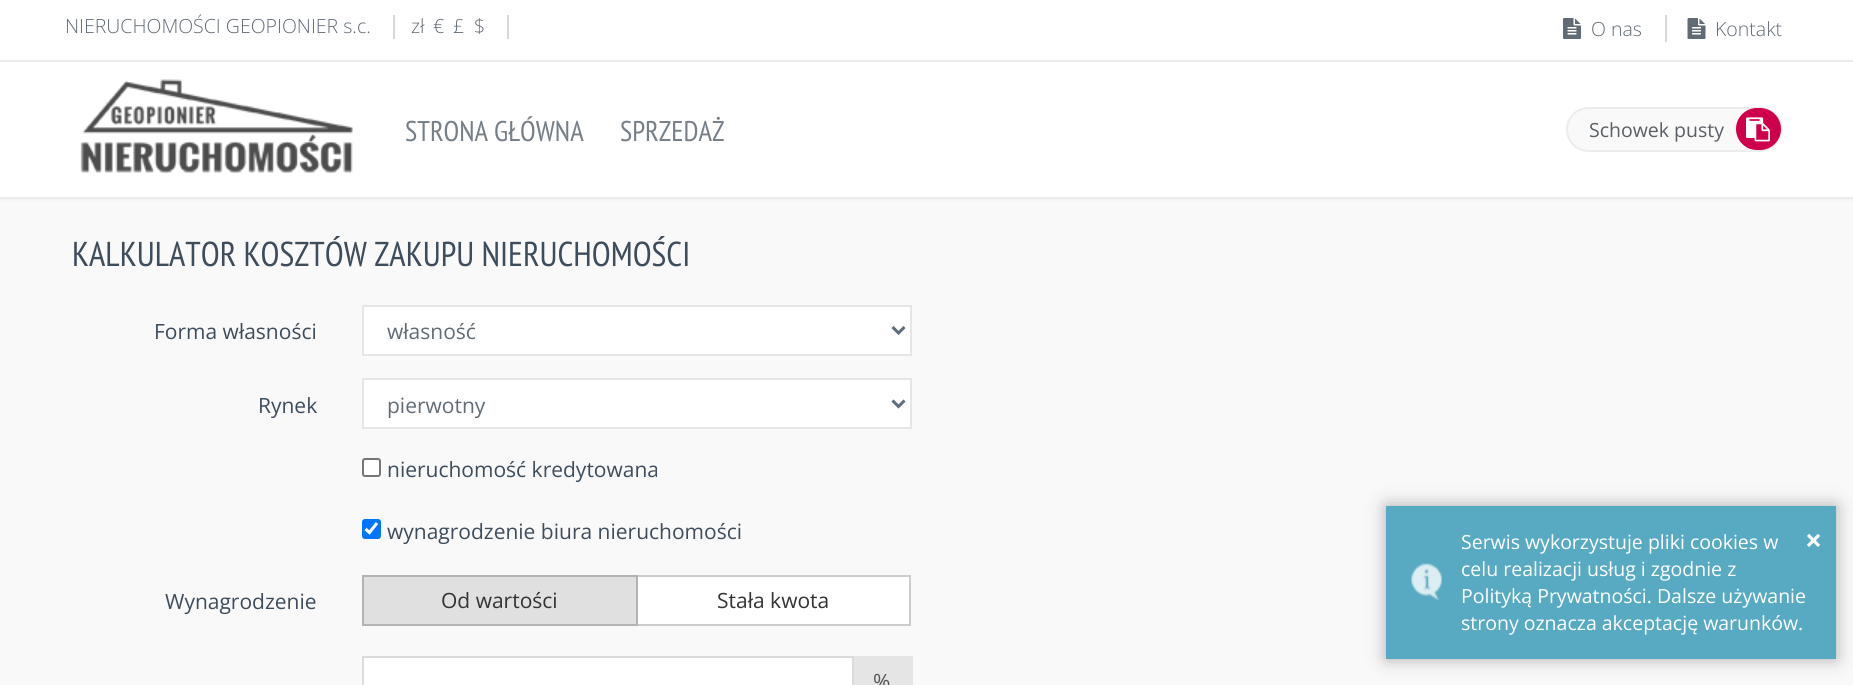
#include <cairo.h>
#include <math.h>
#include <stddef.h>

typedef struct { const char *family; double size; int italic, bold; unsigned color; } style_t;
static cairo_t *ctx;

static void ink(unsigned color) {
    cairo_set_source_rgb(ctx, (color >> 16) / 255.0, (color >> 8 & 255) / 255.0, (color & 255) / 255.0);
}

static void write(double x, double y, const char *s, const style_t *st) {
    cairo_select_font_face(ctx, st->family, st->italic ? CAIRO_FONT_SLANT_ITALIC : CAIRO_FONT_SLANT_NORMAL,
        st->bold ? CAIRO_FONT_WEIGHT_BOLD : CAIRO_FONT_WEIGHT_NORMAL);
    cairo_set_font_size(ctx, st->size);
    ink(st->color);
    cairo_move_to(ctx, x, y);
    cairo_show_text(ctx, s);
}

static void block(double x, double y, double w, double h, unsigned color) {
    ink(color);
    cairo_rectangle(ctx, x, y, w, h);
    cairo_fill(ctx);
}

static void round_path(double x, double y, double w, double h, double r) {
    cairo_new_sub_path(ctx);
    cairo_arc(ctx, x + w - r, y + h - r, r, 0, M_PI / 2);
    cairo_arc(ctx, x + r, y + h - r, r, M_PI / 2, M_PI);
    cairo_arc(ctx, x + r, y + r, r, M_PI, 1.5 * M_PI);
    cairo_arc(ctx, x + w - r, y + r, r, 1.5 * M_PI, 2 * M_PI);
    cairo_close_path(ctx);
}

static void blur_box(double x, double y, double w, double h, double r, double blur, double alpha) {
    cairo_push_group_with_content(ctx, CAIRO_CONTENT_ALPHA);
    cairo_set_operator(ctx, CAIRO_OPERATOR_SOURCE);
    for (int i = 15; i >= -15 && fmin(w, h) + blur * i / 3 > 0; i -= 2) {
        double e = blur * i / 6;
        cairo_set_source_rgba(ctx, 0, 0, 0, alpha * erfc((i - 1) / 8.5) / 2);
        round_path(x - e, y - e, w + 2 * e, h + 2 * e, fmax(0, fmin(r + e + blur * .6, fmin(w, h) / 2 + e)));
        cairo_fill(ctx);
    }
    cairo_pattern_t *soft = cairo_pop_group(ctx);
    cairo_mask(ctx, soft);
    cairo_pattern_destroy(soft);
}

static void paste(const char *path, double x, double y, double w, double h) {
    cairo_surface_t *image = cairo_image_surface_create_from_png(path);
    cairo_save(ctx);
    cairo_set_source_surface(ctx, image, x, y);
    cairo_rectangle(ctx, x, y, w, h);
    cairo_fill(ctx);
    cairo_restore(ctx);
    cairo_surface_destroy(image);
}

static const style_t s1 = {"Open Sans Light", 19.5, 0, 0, 0x616b76};
static const style_t s2 = {"PT Sans Narrow", 28.5, 0, 0, 0x767f88};
static const style_t s3 = {"Open Sans", 19.5, 0, 0, 0x595f65};
static const style_t s4 = {"PT Sans Narrow", 34.5, 0, 0, 0x3e4d5c};
static const style_t s5 = {"Open Sans", 21, 0, 0, 0x3e4d5c};
static const style_t s6 = {"Open Sans", 21, 0, 0, 0x616b76};
static const style_t s7 = {"Open Sans", 21, 0, 0, 0x333333};
static const style_t s8 = {"Open Sans", 21, 0, 0, 0x555555};
static const style_t s9 = {"Open Sans", 19.5, 0, 0, 0xfefefe};
static const style_t s10 = {"Open Sans", 30, 0, 1, 0xfefefe};

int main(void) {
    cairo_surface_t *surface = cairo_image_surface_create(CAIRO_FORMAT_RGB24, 1853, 685);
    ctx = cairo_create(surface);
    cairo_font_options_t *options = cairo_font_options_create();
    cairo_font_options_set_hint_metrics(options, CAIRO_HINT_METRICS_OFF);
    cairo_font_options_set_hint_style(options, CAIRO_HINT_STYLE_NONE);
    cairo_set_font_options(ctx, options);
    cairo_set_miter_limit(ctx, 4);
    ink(0xf9f9f9);
    cairo_paint(ctx);
    block(0, 0, 1853, 60, 0xffffff);
    block(0, 60, 1853, 2, 0xeeeeee);
    block(393, 15, 2, 24, 0xd8d8d8);
    write(65, 33, "NIERUCHOMOŚCI GEOPIONIER s.c.", &s1);
    block(507, 15, 2, 24, 0xd8d8d8);
    write(411, 33, "zł", &s1);
    write(433, 33, "€", &s1);
    write(453, 33, "£", &s1);
    write(474, 33, "$", &s1);
    block(1665, 15, 2, 27, 0xd8d8d8);
    paste("pic1.png", 1563, 18, 18, 21);
    write(1591, 36, "O nas", &s1);
    paste("pic2.png", 1687, 18, 19, 21);
    write(1715, 36, "Kontakt", &s1);
    ink(0xdddddd);
    blur_box(0, 63, 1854, 135, 0, 2, 1);
    block(0, 62, 1853, 135, 0xffffff);
    paste("pic3.png", 80, 79, 273, 94);
    write(405, 141, "STRONA GŁÓWNA", &s2);
    write(620, 141, "SPRZEDAŻ", &s2);
    ink(0xf9f9f9);
    round_path(1567, 108, 214, 43, 21.5);
    cairo_fill_preserve(ctx);
    ink(0xececec);
    cairo_stroke(ctx);
    write(1589, 137, "Schowek pusty", &s3);
    ink(0xcf004b);
    round_path(1736, 108, 45, 42, 21);
    cairo_fill(ctx);
    paste("pic4.png", 1746, 117, 24, 25);
    write(72, 266, "KALKULATOR KOSZTÓW ZAKUPU NIERUCHOMOŚCI", &s4);
    write(154, 339, "Forma własności", &s5);
    ink(0xffffff);
    cairo_rectangle(ctx, 363, 306, 548, 49);
    cairo_fill_preserve(ctx);
    ink(0xe4e6e8);
    cairo_stroke(ctx);
    cairo_new_path(ctx);
    cairo_move_to(ctx, 892.5, 327);
    cairo_line_to(ctx, 898.5, 333);
    cairo_line_to(ctx, 904.5, 327);
    ink(0x5f6d7b);
    cairo_set_line_width(ctx, 3);
    cairo_stroke(ctx);
    write(387, 339, "własność", &s6);
    write(258, 413, "Rynek", &s5);
    ink(0xffffff);
    cairo_rectangle(ctx, 363, 379, 548, 49);
    cairo_fill_preserve(ctx);
    ink(0xe4e6e8);
    cairo_set_line_width(ctx, 2);
    cairo_stroke(ctx);
    cairo_new_path(ctx);
    cairo_move_to(ctx, 892.5, 400.5);
    cairo_line_to(ctx, 898.5, 406.5);
    cairo_line_to(ctx, 904.5, 400.5);
    ink(0x5f6d7b);
    cairo_set_line_width(ctx, 3);
    cairo_stroke(ctx);
    write(387, 413, "pierwotny", &s6);
    ink(0xffffff);
    round_path(363, 459, 17, 17, 2);
    cairo_fill_preserve(ctx);
    ink(0x767676);
    cairo_set_line_width(ctx, 2);
    cairo_stroke(ctx);
    write(387, 477, "nieruchomość kredytowana", &s5);
    ink(0x0075ff);
    round_path(362, 519, 19, 20, 3);
    cairo_fill(ctx);
    cairo_new_path(ctx);
    cairo_move_to(ctx, 365.5, 529);
    cairo_line_to(ctx, 369.5, 532.5);
    cairo_line_to(ctx, 377, 523);
    ink(0xffffff);
    cairo_set_line_width(ctx, 3.1);
    cairo_stroke(ctx);
    write(387, 539, "wynagrodzenie biura nieruchomości", &s5);
    write(165, 609, "Wynagrodzenie", &s5);
    ink(0xffffff);
    cairo_rectangle(ctx, 637, 576, 273, 49);
    cairo_fill_preserve(ctx);
    ink(0xcccccc);
    cairo_set_line_width(ctx, 2);
    cairo_stroke(ctx);
    ink(0xe0e0e0);
    cairo_rectangle(ctx, 363, 576, 274, 49);
    cairo_fill_preserve(ctx);
    ink(0xb3b3b3);
    cairo_stroke(ctx);
    write(441, 608, "Od wartości", &s7);
    write(717, 608, "Stała kwota", &s7);
    ink(0xffffff);
    cairo_rectangle(ctx, 363, 657, 490, 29);
    cairo_fill_preserve(ctx);
    ink(0xdbdbdb);
    cairo_stroke(ctx);
    block(854, 656, 59, 29, 0xe5e5e5);
    write(873, 689, "%", &s8);
    ink(0xacacac);
    blur_box(1386, 506, 450, 153, 0, 9, 1);
    block(1386, 506, 450, 153, 0x57aac2);
    paste("pic5.png", 1411, 563, 31, 38);
    write(1461, 549, "Serwis wykorzystuje pliki cookies w", &s9);
    write(1461, 576, "celu realizacji usług i zgodnie z", &s9);
    write(1461, 603, "Polityką Prywatności. Dalsze używanie", &s9);
    write(1461, 630, "strony oznacza akceptację warunków.", &s9);
    write(1805, 551, "×", &s10);
    cairo_surface_write_to_png(surface, "screenshot.png");
    cairo_font_options_destroy(options);
    cairo_destroy(ctx);
    cairo_surface_destroy(surface);
    return 0;
}
